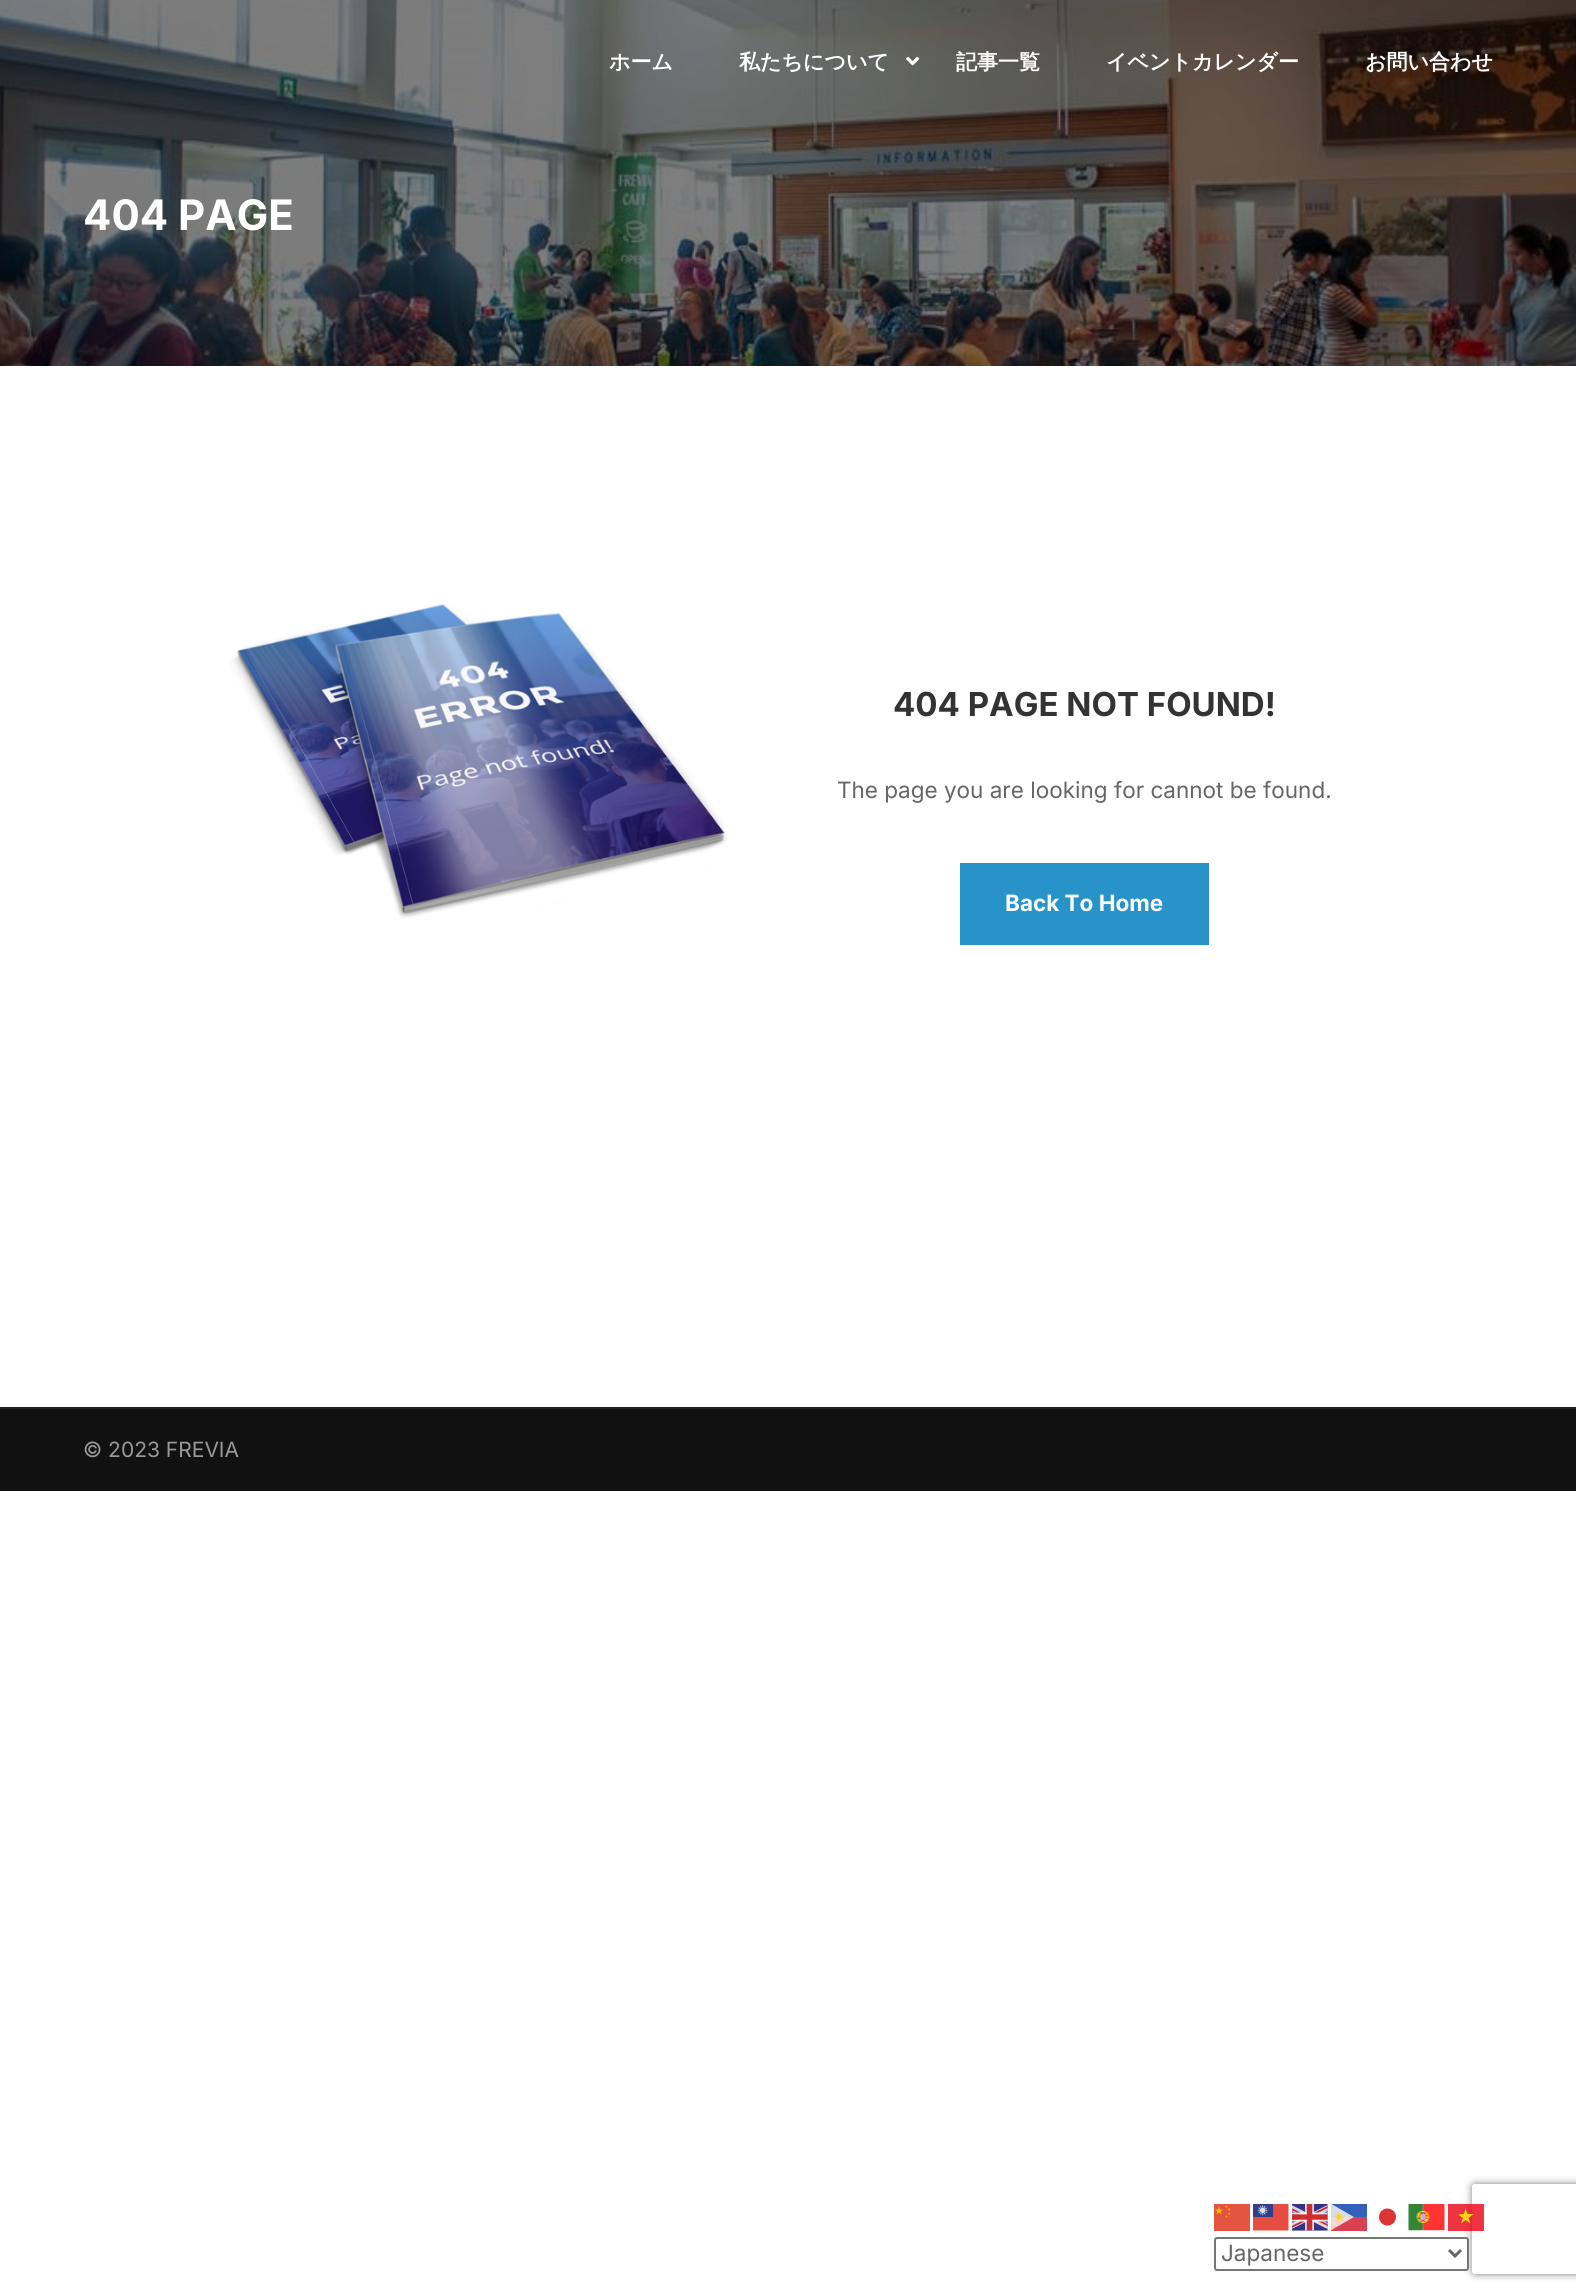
#include <cairo.h>
#include <math.h>
#include <stddef.h>

typedef struct { const char *family; double size; int italic, bold; unsigned color; } style_t;
static cairo_t *ctx;

static void ink(unsigned color) {
    cairo_set_source_rgb(ctx, (color >> 16) / 255.0, (color >> 8 & 255) / 255.0, (color & 255) / 255.0);
}

static void write(double x, double y, const char *s, const style_t *st) {
    cairo_select_font_face(ctx, st->family, st->italic ? CAIRO_FONT_SLANT_ITALIC : CAIRO_FONT_SLANT_NORMAL,
        st->bold ? CAIRO_FONT_WEIGHT_BOLD : CAIRO_FONT_WEIGHT_NORMAL);
    cairo_set_font_size(ctx, st->size);
    ink(st->color);
    cairo_move_to(ctx, x, y);
    cairo_show_text(ctx, s);
}

static void block(double x, double y, double w, double h, unsigned color) {
    ink(color);
    cairo_rectangle(ctx, x, y, w, h);
    cairo_fill(ctx);
}

static void round_path(double x, double y, double w, double h, double r) {
    cairo_new_sub_path(ctx);
    cairo_arc(ctx, x + w - r, y + h - r, r, 0, M_PI / 2);
    cairo_arc(ctx, x + r, y + h - r, r, M_PI / 2, M_PI);
    cairo_arc(ctx, x + r, y + r, r, M_PI, 1.5 * M_PI);
    cairo_arc(ctx, x + w - r, y + r, r, 1.5 * M_PI, 2 * M_PI);
    cairo_close_path(ctx);
}

static void blur_box(double x, double y, double w, double h, double r, double blur, double alpha) {
    cairo_push_group_with_content(ctx, CAIRO_CONTENT_ALPHA);
    cairo_set_operator(ctx, CAIRO_OPERATOR_SOURCE);
    for (int i = 15; i >= -15 && fmin(w, h) + blur * i / 3 > 0; i -= 2) {
        double e = blur * i / 6;
        cairo_set_source_rgba(ctx, 0, 0, 0, alpha * erfc((i - 1) / 8.5) / 2);
        round_path(x - e, y - e, w + 2 * e, h + 2 * e, fmax(0, fmin(r + e + blur * .6, fmin(w, h) / 2 + e)));
        cairo_fill(ctx);
    }
    cairo_pattern_t *soft = cairo_pop_group(ctx);
    cairo_mask(ctx, soft);
    cairo_pattern_destroy(soft);
}

static void paste(const char *path, double x, double y, double w, double h) {
    cairo_surface_t *image = cairo_image_surface_create_from_png(path);
    cairo_save(ctx);
    cairo_set_source_surface(ctx, image, x, y);
    cairo_rectangle(ctx, x, y, w, h);
    cairo_fill(ctx);
    cairo_restore(ctx);
    cairo_surface_destroy(image);
}

static const style_t s1 = {"WenQuanYi Zen Hei", 21, 0, 1, 0xffffff};
static const style_t s2 = {"Inter", 42, 0, 1, 0xffffff};
static const style_t s3 = {"Inter", 33, 0, 1, 0x333333};
static const style_t s4 = {"Inter", 22.5, 0, 0, 0x666666};
static const style_t s5 = {"Inter", 22.5, 0, 1, 0xffffff};
static const style_t s6 = {"Inter", 21, 0, 0, 0x999999};

int main(void) {
    cairo_surface_t *surface = cairo_image_surface_create(CAIRO_FORMAT_RGB24, 1576, 2295);
    ctx = cairo_create(surface);
    cairo_font_options_t *options = cairo_font_options_create();
    cairo_font_options_set_hint_metrics(options, CAIRO_HINT_METRICS_OFF);
    cairo_font_options_set_hint_style(options, CAIRO_HINT_STYLE_NONE);
    cairo_set_font_options(ctx, options);
    cairo_set_miter_limit(ctx, 4);
    ink(0xffffff);
    cairo_paint(ctx);
    paste("pic2.png", 0, 0, 1576, 366);
    write(609, 69, "ホーム", &s1);
    write(739, 69, "私たちについて", &s1);
    paste("pic1.png", 906, 56, 14, 10);
    write(956, 69, "記事一覧", &s1);
    write(1106, 69, "イベントカレンダー", &s1);
    write(1365, 69, "お問い合わせ", &s1);
    write(83, 230, "404 PAGE", &s2);
    paste("pic3.png", 229, 604, 498, 315);
    write(893, 716, "404 PAGE NOT FOUND!", &s3);
    write(837, 798, "The page you are looking for cannot be found.", &s4);
    block(960, 863, 249, 82, 0x2893c9);
    write(1005, 911, "Back To Home", &s5);
    block(0, 1409, 1576, 82, 0x111111);
    block(0, 1407, 1576, 2, 0x222222);
    write(83, 1457, "© 2023 FREVIA", &s6);
    paste("pic4.png", 1214, 2204, 36, 27);
    paste("pic5.png", 1253, 2204, 36, 27);
    paste("pic6.png", 1292, 2204, 36, 27);
    paste("pic7.png", 1331, 2204, 36, 27);
    ink(0xdc3333);
    cairo_arc(ctx, 1387.5, 2217, 8.5, 0, 2 * M_PI);
    cairo_fill(ctx);
    paste("pic8.png", 1408, 2204, 37, 27);
    cairo_save(ctx);
    cairo_set_fill_rule(ctx, CAIRO_FILL_RULE_EVEN_ODD);
    cairo_new_path(ctx);
    cairo_move_to(ctx, 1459, 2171);
    cairo_line_to(ctx, 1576, 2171);
    cairo_line_to(ctx, 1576, 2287);
    cairo_line_to(ctx, 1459, 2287);
    cairo_close_path(ctx);
    cairo_move_to(ctx, 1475, 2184);
    cairo_line_to(ctx, 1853, 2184);
    cairo_curve_to(ctx, 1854.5, 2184, 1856, 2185.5, 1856, 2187);
    cairo_line_to(ctx, 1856, 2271);
    cairo_curve_to(ctx, 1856, 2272.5, 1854.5, 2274, 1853, 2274);
    cairo_line_to(ctx, 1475, 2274);
    cairo_curve_to(ctx, 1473.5, 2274, 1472, 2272.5, 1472, 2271);
    cairo_line_to(ctx, 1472, 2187);
    cairo_curve_to(ctx, 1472, 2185.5, 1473.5, 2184, 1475, 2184);
    cairo_close_path(ctx);
    cairo_clip(ctx);
    ink(0x808080);
    blur_box(1472, 2184, 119, 90, 3, 4, 1);
    cairo_restore(ctx);
    cairo_set_source_rgba(ctx, 0.925, 0, 0.082, 0.8);
    cairo_rectangle(ctx, 1448, 2204, 36, 27);
    cairo_fill(ctx);
    cairo_set_source_rgba(ctx, 1, 1, 0, 0.8);
    cairo_set_fill_rule(ctx, CAIRO_FILL_RULE_EVEN_ODD);
    cairo_new_path(ctx);
    cairo_move_to(ctx, 1470.5, 2223.5);
    cairo_line_to(ctx, 1465.5, 2220);
    cairo_line_to(ctx, 1461, 2223.5);
    cairo_line_to(ctx, 1463, 2218);
    cairo_line_to(ctx, 1458, 2214.5);
    cairo_line_to(ctx, 1464, 2214);
    cairo_line_to(ctx, 1465.5, 2208.5);
    cairo_line_to(ctx, 1467.5, 2214);
    cairo_line_to(ctx, 1473.5, 2214);
    cairo_line_to(ctx, 1468.5, 2218);
    cairo_close_path(ctx);
    cairo_fill(ctx);
    ink(0xffffff);
    round_path(1215, 2238, 253, 32, 2);
    cairo_fill_preserve(ctx);
    ink(0x767676);
    cairo_stroke(ctx);
    cairo_new_path(ctx);
    cairo_move_to(ctx, 1449, 2250);
    cairo_line_to(ctx, 1455, 2256);
    cairo_line_to(ctx, 1461, 2250);
    ink(0x666666);
    cairo_set_line_width(ctx, 3);
    cairo_stroke(ctx);
    write(1221, 2261, "Japanese", &s4);
    cairo_surface_write_to_png(surface, "screenshot.png");
    cairo_font_options_destroy(options);
    cairo_destroy(ctx);
    cairo_surface_destroy(surface);
    return 0;
}
